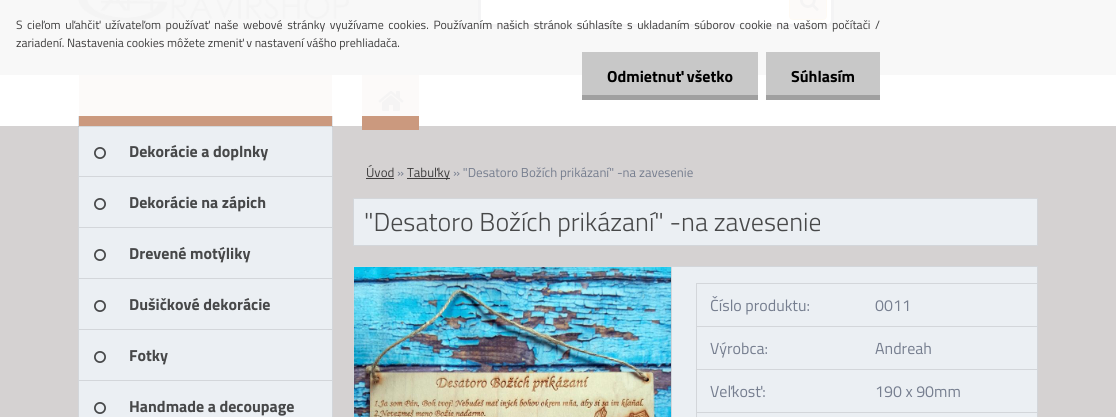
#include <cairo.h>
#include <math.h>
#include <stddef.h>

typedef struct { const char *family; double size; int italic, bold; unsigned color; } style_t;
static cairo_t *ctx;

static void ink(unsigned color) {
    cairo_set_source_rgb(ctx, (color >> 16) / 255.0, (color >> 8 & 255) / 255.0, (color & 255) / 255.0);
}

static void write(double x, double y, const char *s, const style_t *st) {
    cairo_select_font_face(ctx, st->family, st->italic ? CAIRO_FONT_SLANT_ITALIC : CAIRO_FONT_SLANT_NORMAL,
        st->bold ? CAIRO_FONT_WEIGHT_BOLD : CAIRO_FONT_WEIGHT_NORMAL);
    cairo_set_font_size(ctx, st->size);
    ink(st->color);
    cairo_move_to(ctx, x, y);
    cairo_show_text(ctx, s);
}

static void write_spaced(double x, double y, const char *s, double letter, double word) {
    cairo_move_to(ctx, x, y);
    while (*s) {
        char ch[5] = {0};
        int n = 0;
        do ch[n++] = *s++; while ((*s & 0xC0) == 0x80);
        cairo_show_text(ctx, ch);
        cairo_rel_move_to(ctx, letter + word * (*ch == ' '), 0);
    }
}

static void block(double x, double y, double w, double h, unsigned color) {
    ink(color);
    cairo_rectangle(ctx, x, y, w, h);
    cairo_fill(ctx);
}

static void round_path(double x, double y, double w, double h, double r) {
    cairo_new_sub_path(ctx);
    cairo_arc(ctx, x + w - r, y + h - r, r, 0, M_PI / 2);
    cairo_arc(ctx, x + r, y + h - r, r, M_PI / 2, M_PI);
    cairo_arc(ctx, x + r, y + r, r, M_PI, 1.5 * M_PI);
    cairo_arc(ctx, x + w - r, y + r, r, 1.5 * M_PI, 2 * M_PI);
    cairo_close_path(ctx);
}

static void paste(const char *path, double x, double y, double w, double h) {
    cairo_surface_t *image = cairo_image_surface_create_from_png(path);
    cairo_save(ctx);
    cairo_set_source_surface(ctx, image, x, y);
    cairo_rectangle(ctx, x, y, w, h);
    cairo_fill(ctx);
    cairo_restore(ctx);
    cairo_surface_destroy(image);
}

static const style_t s1 = {"Titillium Web", 12, 0, 0, 0x3f3e3e};
static const style_t s2 = {"Titillium Web", 16, 0, 1, 0x000000};
static const style_t s3 = {"Titillium Web", 16, 0, 1, 0x474849};
static const style_t s4 = {"Titillium Web", 13, 0, 0, 0x3f3e3e};
static const style_t s5 = {"Titillium Web", 13, 0, 0, 0x767e8f};
static const style_t s6 = {"Titillium Web Light", 26, 0, 0, 0x474849};
static const style_t s7 = {"Titillium Web", 16, 0, 0, 0x767e8f};

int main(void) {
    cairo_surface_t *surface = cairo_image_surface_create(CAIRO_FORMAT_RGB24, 1116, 417);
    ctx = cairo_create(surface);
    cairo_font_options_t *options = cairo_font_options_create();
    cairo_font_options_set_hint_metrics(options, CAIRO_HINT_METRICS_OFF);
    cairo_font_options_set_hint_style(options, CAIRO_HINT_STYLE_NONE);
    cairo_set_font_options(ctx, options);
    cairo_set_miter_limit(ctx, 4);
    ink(0xd5d2d2);
    cairo_paint(ctx);
    block(0, 0, 1116, 75, 0xf8f8f8);
    paste("pic1.png", 78, 0, 275, 30);
    round_path(479.5, -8.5, 353, 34, 5.5);
    ink(0xf4f4f5);
    cairo_set_line_width(ctx, 3);
    cairo_stroke(ctx);
    ink(0xffffff);
    round_path(481, -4, 350, 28, 4);
    cairo_fill(ctx);
    cairo_select_font_face(ctx, "Titillium Web", CAIRO_FONT_SLANT_NORMAL, CAIRO_FONT_WEIGHT_NORMAL);
    cairo_set_font_size(ctx, 12);
    ink(0x3f3e3e);
    write_spaced(16, 29, "S cieľom uľahčiť užívateľom používať naše webové stránky využívame cookies. Používaním našich stránok súhlasíte s ukladaním súborov cookie na vašom počítači /", 0, 1.95);
    write(16, 47, "zariadení. Nastavenia cookies môžete zmeniť v nastavení vášho prehliadača.", &s1);
    block(0, 75, 1116, 51, 0xffffff);
    block(582, 52, 176, 43, 0xc8c8c8);
    block(582, 95, 176, 5, 0xa0a0a0);
    write(607, 82, "Odmietnuť všetko", &s2);
    block(766, 52, 114, 43, 0xc8c8c8);
    block(766, 95, 114, 5, 0xa0a0a0);
    write(791, 82, "Súhlasím", &s2);
    ink(0xfcfaf9);
    round_path(789.5, -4.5, 37, 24, 3.5);
    cairo_fill_preserve(ctx);
    ink(0xfefaf4);
    cairo_set_line_width(ctx, 1);
    cairo_stroke(ctx);
    paste("pic2.png", 800, 0, 19, 11);
    block(407, 178, 43, 1, 0x403f3f);
    block(366, 178, 28, 1, 0x403f3f);
    block(362, 116, 57, 14, 0xcb997e);
    block(362, 75, 57, 41, 0xfcfaf9);
    paste("pic3.png", 378, 91, 26, 20);
    block(79, 126, 253, 50, 0xebeff3);
    block(332, 126, 1, 291, 0xd3d6da);
    block(78, 176, 255, 1, 0xd3d6da);
    block(78, 126, 1, 51, 0xd3d6da);
    cairo_set_source_rgba(ctx, 0, 0, 0, 0.1);
    cairo_rectangle(ctx, 78, 126, 255, 1);
    cairo_fill(ctx);
    block(79, 116, 253, 10, 0xcb997e);
    block(79, 75, 253, 41, 0xfcfaf9);
    block(332, 116, 1, 10, 0xe3e7eb);
    block(78, 116, 1, 10, 0xe3e7eb);
    paste("pic4.png", 94, 147, 12, 12);
    write(129, 157, "Dekorácie a doplnky", &s3);
    block(79, 177, 253, 50, 0xebeff3);
    block(78, 227, 255, 1, 0xd3d6da);
    block(78, 177, 1, 51, 0xd3d6da);
    paste("pic4.png", 94, 198, 12, 12);
    write(129, 208, "Dekorácie na zápich", &s3);
    block(79, 228, 253, 50, 0xebeff3);
    block(78, 278, 255, 1, 0xd3d6da);
    block(78, 228, 1, 51, 0xd3d6da);
    paste("pic4.png", 94, 249, 12, 12);
    write(129, 259, "Drevené motýliky", &s3);
    block(79, 279, 253, 50, 0xebeff3);
    block(78, 329, 255, 1, 0xd3d6da);
    block(78, 279, 1, 51, 0xd3d6da);
    paste("pic4.png", 94, 300, 12, 12);
    write(129, 310, "Dušičkové dekorácie", &s3);
    block(79, 330, 253, 50, 0xebeff3);
    block(78, 380, 255, 1, 0xd3d6da);
    block(78, 330, 1, 87, 0xd3d6da);
    paste("pic4.png", 94, 351, 12, 12);
    write(129, 361, "Fotky", &s3);
    block(79, 381, 253, 36, 0xebeff3);
    paste("pic4.png", 94, 402, 12, 12);
    write(129, 412, "Handmade a decoupage", &s3);
    write(366, 177, "Úvod", &s4);
    write(397, 177, "»", &s5);
    write(407, 177, "Tabuľky", &s4);
    write(453, 177, "» \"Desatoro Božích prikázaní\" -na zavesenie", &s5);
    ink(0xebeff3);
    cairo_rectangle(ctx, 353.5, 198.5, 684, 47);
    cairo_fill_preserve(ctx);
    ink(0xd3d6da);
    cairo_stroke(ctx);
    write(364, 231, "\"Desatoro Božích prikázaní\" -na zavesenie", &s6);
    block(672, 267, 365, 150, 0xebeff3);
    cairo_rectangle(ctx, 353.5, 266.5, 684, 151);
    ink(0xd3d6da);
    cairo_stroke(ctx);
    cairo_rectangle(ctx, 353.5, 266.5, 318, 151);
    cairo_stroke(ctx);
    paste("pic5.png", 354, 267, 317, 150);
    block(696, 283, 342, 1, 0xd3d6da);
    block(1037, 413, 1, 4, 0xebeff3);
    block(1037, 413, 1, 4, 0xd3d6da);
    block(696, 283, 1, 134, 0xd3d6da);
    write(710, 311, "Číslo produktu:", &s7);
    write(875, 311, "0011", &s7);
    block(696, 326, 342, 1, 0xd3d6da);
    write(710, 354, "Výrobca:", &s7);
    write(875, 354, "Andreah", &s7);
    block(696, 369, 342, 1, 0xd3d6da);
    write(710, 397, "Veľkosť:", &s7);
    write(875, 397, "190 x 90mm", &s7);
    block(696, 412, 342, 1, 0xd3d6da);
    cairo_surface_write_to_png(surface, "screenshot.png");
    cairo_font_options_destroy(options);
    cairo_destroy(ctx);
    cairo_surface_destroy(surface);
    return 0;
}
